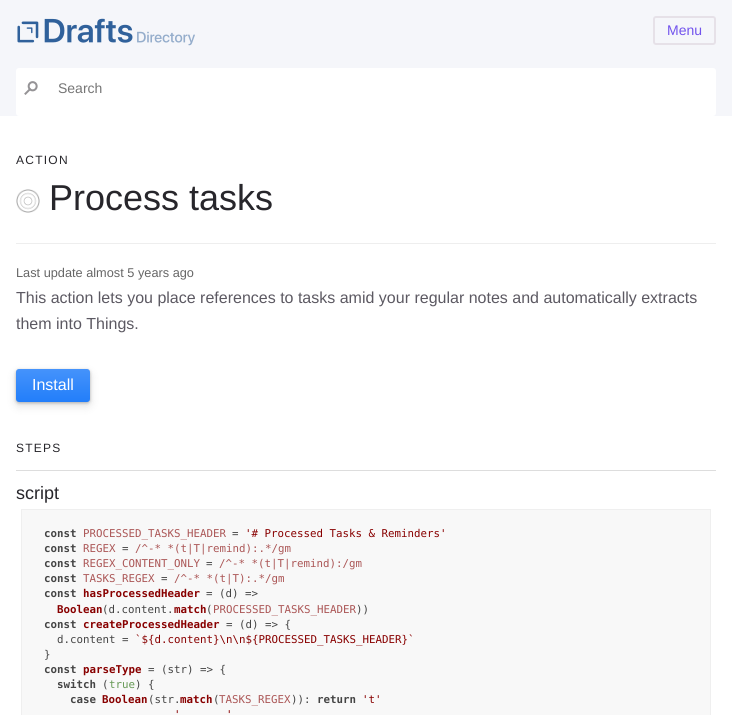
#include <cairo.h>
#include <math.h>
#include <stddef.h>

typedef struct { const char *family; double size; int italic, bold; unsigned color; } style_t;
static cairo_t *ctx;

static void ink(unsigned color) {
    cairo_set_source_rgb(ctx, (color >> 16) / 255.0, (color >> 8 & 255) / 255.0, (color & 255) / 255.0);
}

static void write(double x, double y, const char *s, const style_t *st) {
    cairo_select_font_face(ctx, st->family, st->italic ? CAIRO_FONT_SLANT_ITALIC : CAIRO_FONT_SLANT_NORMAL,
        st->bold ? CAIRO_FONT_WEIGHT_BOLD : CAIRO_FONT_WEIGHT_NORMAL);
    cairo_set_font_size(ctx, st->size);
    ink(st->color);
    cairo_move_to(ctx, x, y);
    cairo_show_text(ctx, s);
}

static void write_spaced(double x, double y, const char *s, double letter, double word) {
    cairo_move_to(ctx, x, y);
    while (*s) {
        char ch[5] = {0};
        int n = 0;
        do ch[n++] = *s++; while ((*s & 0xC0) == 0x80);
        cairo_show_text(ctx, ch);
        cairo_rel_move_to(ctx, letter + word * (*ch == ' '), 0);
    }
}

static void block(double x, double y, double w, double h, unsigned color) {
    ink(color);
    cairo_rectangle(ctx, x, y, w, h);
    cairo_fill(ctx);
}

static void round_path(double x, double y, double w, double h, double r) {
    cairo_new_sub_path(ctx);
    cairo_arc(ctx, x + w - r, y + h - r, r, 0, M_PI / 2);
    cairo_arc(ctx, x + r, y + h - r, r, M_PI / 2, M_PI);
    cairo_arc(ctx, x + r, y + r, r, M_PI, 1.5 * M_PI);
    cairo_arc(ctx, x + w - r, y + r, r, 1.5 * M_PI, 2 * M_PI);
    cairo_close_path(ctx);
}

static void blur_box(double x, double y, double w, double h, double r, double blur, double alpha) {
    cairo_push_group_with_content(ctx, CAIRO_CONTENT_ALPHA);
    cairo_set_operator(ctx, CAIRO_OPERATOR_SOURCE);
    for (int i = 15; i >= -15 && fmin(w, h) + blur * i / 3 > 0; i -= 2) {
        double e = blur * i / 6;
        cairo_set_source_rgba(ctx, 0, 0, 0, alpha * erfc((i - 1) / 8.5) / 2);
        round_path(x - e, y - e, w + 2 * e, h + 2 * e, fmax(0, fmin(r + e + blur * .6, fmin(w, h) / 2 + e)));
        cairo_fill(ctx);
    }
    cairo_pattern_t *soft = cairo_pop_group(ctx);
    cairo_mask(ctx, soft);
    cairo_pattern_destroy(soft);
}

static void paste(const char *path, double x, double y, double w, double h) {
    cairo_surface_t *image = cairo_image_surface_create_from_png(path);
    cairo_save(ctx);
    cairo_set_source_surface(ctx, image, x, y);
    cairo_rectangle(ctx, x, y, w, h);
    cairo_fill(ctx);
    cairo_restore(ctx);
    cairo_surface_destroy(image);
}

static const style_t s1 = {"Liberation Sans", 14, 0, 0, 0x7253ed};
static const style_t s2 = {"Liberation Sans", 14, 0, 0, 0x757575};
static const style_t s3 = {"Liberation Sans", 36, 0, 0, 0x27262b};
static const style_t s4 = {"Liberation Sans", 12.75, 0, 0, 0x666666};
static const style_t s5 = {"Liberation Sans", 16, 0, 0, 0x5c5962};
static const style_t s6 = {"Liberation Sans", 16, 0, 0, 0xffffff};
static const style_t s7 = {"Liberation Sans", 18, 0, 0, 0x27262b};
static const style_t s8 = {"DejaVu Sans Mono", 10.8, 0, 1, 0x444444};
static const style_t s9 = {"DejaVu Sans Mono", 10.8, 0, 0, 0xab5656};
static const style_t s10 = {"DejaVu Sans Mono", 10.8, 0, 0, 0x444444};
static const style_t s11 = {"DejaVu Sans Mono", 10.8, 0, 0, 0x880000};
static const style_t s12 = {"DejaVu Sans Mono", 10.8, 0, 1, 0x880000};
static const style_t s13 = {"DejaVu Sans Mono", 10.8, 0, 0, 0x669955};

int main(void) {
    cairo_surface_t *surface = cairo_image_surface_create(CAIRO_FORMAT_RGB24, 732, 715);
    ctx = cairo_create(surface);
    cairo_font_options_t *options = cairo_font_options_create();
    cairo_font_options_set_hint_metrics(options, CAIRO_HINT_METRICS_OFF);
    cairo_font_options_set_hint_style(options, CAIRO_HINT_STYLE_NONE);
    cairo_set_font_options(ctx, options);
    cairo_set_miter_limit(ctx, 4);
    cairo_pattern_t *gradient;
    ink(0xffffff);
    cairo_paint(ctx);
    block(0, 0, 732, 116, 0xf5f6fa);
    paste("pic1.png", 17, 18, 178, 28);
    round_path(654, 17, 61, 27, 2);
    ink(0xe6e1e8);
    cairo_stroke(ctx);
    write(667, 35, "Menu", &s1);
    ink(0xffffff);
    round_path(16, 68, 700, 48, 3);
    cairo_fill(ctx);
    paste("pic2.png", 24, 81, 14, 14);
    write(58, 93, "Search", &s2);
    cairo_set_font_size(ctx, 12);
    ink(0x27262b);
    write_spaced(16, 164, "ACTION", 1.25, 0);
    block(16, 243, 700, 1, 0xeeeeee);
    paste("pic3.png", 16, 189, 24, 24);
    write(49, 210, "Process tasks", &s3);
    write(16, 277, "Last update almost 5 years ago", &s4);
    write(16, 303, "This action lets you place references to tasks amid your regular notes and automatically extracts", &s5);
    write(16, 329, "them into Things.", &s5);
    ink(0x000000);
    blur_box(16, 373, 74, 33, 3, 5, 0.12);
    blur_box(16, 370, 74, 33, 3, 1.5, 0.25);
    gradient = cairo_pattern_create_linear(53, 369, 53, 402);
    cairo_pattern_add_color_stop_rgba(gradient, 0, 0.271, 0.576, 0.984, 1);
    cairo_pattern_add_color_stop_rgba(gradient, 1, 0.133, 0.494, 0.98, 1);
    cairo_set_source(ctx, gradient);
    cairo_pattern_destroy(gradient);
    round_path(16, 369, 74, 33, 3);
    cairo_fill(ctx);
    write(32, 390, "Install", &s6);
    cairo_set_font_size(ctx, 12);
    ink(0x27262b);
    write_spaced(16, 452, "STEPS", 1.25, 0);
    block(16, 470, 700, 1, 0xdddddd);
    write(16, 499, "script", &s7);
    ink(0xf8f8f8);
    cairo_rectangle(ctx, 21.5, 509.5, 689, 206);
    cairo_fill_preserve(ctx);
    ink(0xefefef);
    cairo_set_line_width(ctx, 1);
    cairo_stroke(ctx);
    write(44, 537, "const", &s8);
    write(83, 537, "PROCESSED_TASKS_HEADER", &s9);
    write(232, 537, "=", &s10);
    write(245, 537, "'# Processed Tasks & Reminders'", &s11);
    write(44, 552, "const", &s8);
    write(83, 552, "REGEX", &s9);
    write(122, 552, "=", &s10);
    write(135, 552, "/^-* *(t|T|remind):.*/gm", &s9);
    write(44, 567, "const", &s8);
    write(83, 567, "REGEX_CONTENT_ONLY", &s9);
    write(206, 567, "=", &s10);
    write(219, 567, "/^-* *(t|T|remind):/gm", &s9);
    write(44, 582, "const", &s8);
    write(83, 582, "TASKS_REGEX", &s9);
    write(161, 582, "=", &s10);
    write(174, 582, "/^-* *(t|T):.*/gm", &s9);
    write(44, 597, "const", &s8);
    write(83, 597, "hasProcessedHeader", &s12);
    write(206, 597, "= (d) =>", &s10);
    write(57, 613, "Boolean", &s12);
    write(102, 613, "(d.content.", &s10);
    write(174, 613, "match", &s12);
    write(206, 613, "(", &s10);
    write(213, 613, "PROCESSED_TASKS_HEADER", &s9);
    write(356, 613, "))", &s10);
    write(44, 628, "const", &s8);
    write(83, 628, "createProcessedHeader", &s12);
    write(226, 628, "= (d) => {", &s10);
    write(57, 643, "d.content =", &s10);
    write(135, 643, "`${d.content}\\n\\n${PROCESSED_TASKS_HEADER}", &s11);
    write(408, 643, "`", &s11);
    write(44, 658, "}", &s10);
    write(44, 673, "const", &s8);
    write(83, 673, "parseType", &s12);
    write(148, 673, "= (str) => {", &s10);
    write(57, 688, "switch", &s8);
    write(102, 688, "(", &s10);
    write(109, 688, "true", &s13);
    write(135, 688, ") {", &s10);
    write(70, 703, "case", &s8);
    write(102, 703, "Boolean", &s12);
    write(148, 703, "(str.", &s10);
    write(180, 703, "match", &s12);
    write(213, 703, "(", &s10);
    write(219, 703, "TASKS_REGEX", &s9);
    write(291, 703, ")):", &s10);
    write(317, 703, "return", &s8);
    write(362, 703, "'t'", &s11);
    write(174, 718, "'", &s11);
    write(226, 718, "'", &s11);
    cairo_surface_write_to_png(surface, "screenshot.png");
    cairo_font_options_destroy(options);
    cairo_destroy(ctx);
    cairo_surface_destroy(surface);
    return 0;
}
